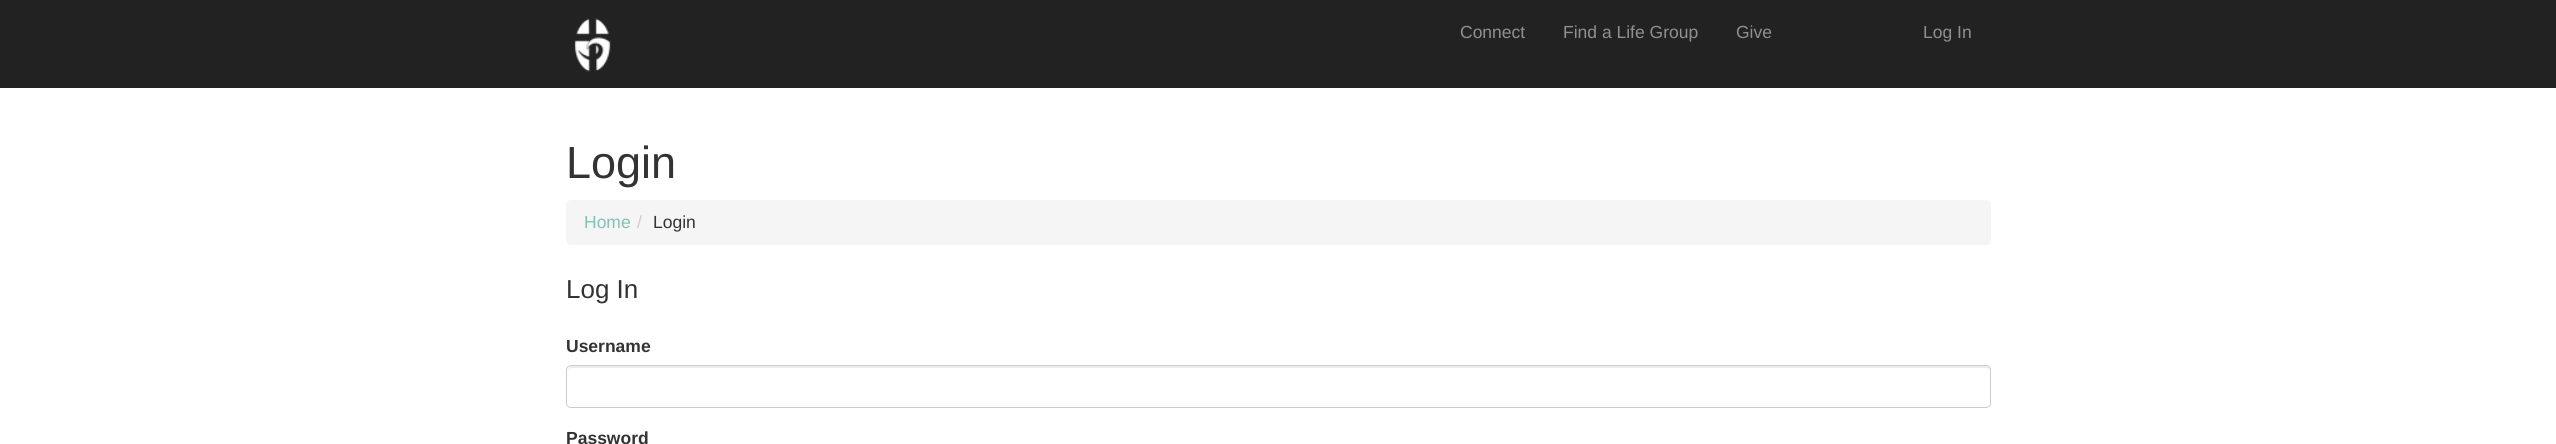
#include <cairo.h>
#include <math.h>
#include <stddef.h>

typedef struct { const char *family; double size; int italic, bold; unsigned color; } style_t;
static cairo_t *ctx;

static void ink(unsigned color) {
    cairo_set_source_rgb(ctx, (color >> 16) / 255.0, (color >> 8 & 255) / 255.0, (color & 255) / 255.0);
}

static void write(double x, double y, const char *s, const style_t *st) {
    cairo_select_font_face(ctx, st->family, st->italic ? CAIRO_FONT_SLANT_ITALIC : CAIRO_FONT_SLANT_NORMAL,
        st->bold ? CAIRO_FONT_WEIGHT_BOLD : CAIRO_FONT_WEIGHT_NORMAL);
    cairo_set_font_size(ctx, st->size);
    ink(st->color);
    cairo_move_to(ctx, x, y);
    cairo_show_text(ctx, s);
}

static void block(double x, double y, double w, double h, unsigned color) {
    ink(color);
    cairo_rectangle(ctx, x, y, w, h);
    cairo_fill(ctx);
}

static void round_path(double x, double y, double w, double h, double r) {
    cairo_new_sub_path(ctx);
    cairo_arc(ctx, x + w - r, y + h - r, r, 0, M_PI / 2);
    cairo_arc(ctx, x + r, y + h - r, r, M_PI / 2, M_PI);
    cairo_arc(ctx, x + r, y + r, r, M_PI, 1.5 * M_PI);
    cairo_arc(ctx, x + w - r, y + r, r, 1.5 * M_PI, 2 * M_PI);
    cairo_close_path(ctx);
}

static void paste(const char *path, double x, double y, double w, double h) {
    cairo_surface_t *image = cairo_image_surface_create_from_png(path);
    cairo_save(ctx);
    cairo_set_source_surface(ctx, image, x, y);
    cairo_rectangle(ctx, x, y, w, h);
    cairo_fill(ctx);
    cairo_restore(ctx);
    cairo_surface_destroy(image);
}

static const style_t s1 = {"Liberation Sans", 17.5, 0, 0, 0x909090};
static const style_t s2 = {"Liberation Sans", 45, 0, 0, 0x333333};
static const style_t s3 = {"Liberation Sans", 17.5, 0, 0, 0x84c0b6};
static const style_t s4 = {"Liberation Sans", 17.5, 0, 0, 0xcccccc};
static const style_t s5 = {"Liberation Sans", 17.5, 0, 0, 0x333333};
static const style_t s6 = {"Liberation Sans", 26, 0, 0, 0x333333};
static const style_t s7 = {"Liberation Sans", 17.5, 0, 1, 0x333333};

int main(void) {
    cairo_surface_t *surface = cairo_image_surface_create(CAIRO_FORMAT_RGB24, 2556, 444);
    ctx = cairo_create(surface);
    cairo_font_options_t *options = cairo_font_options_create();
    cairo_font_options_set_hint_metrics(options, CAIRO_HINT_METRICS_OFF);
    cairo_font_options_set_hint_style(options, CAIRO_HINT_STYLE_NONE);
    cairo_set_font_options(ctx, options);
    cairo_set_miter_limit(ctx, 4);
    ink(0xffffff);
    cairo_paint(ctx);
    block(0, 0, 2556, 88, 0x222222);
    paste("pic1.png", 574, 18, 37, 54);
    write(1460, 38, "Connect", &s1);
    write(1563, 38, "Find a Life Group", &s1);
    write(1736, 38, "Give", &s1);
    write(1923, 38, "Log In", &s1);
    write(566, 178, "Login", &s2);
    ink(0xf5f5f5);
    round_path(566, 200, 1425, 45, 5);
    cairo_fill(ctx);
    write(584, 228, "Home", &s3);
    write(637, 228, "/", &s4);
    write(653, 228, "Login", &s5);
    write(566, 298, "Log In", &s6);
    write(566, 352, "Username", &s7);
    ink(0xececec);
    cairo_new_path(ctx);
    cairo_move_to(ctx, 571, 368);
    cairo_line_to(ctx, 1986, 368);
    cairo_curve_to(ctx, 1988, 368, 1990, 369, 1990, 371);
    cairo_line_to(ctx, 1990, 370);
    cairo_curve_to(ctx, 1990, 368, 1988, 366, 1986, 366);
    cairo_line_to(ctx, 572, 366);
    cairo_curve_to(ctx, 570, 366, 568, 368, 568, 370);
    cairo_line_to(ctx, 568, 371);
    cairo_curve_to(ctx, 568, 369, 569, 368, 571, 368);
    cairo_close_path(ctx);
    cairo_fill(ctx);
    round_path(566.5, 365.5, 1424, 42, 4.5);
    ink(0xcccccc);
    cairo_set_line_width(ctx, 1);
    cairo_stroke(ctx);
    write(566, 444, "Password", &s7);
    cairo_surface_write_to_png(surface, "screenshot.png");
    cairo_font_options_destroy(options);
    cairo_destroy(ctx);
    cairo_surface_destroy(surface);
    return 0;
}
